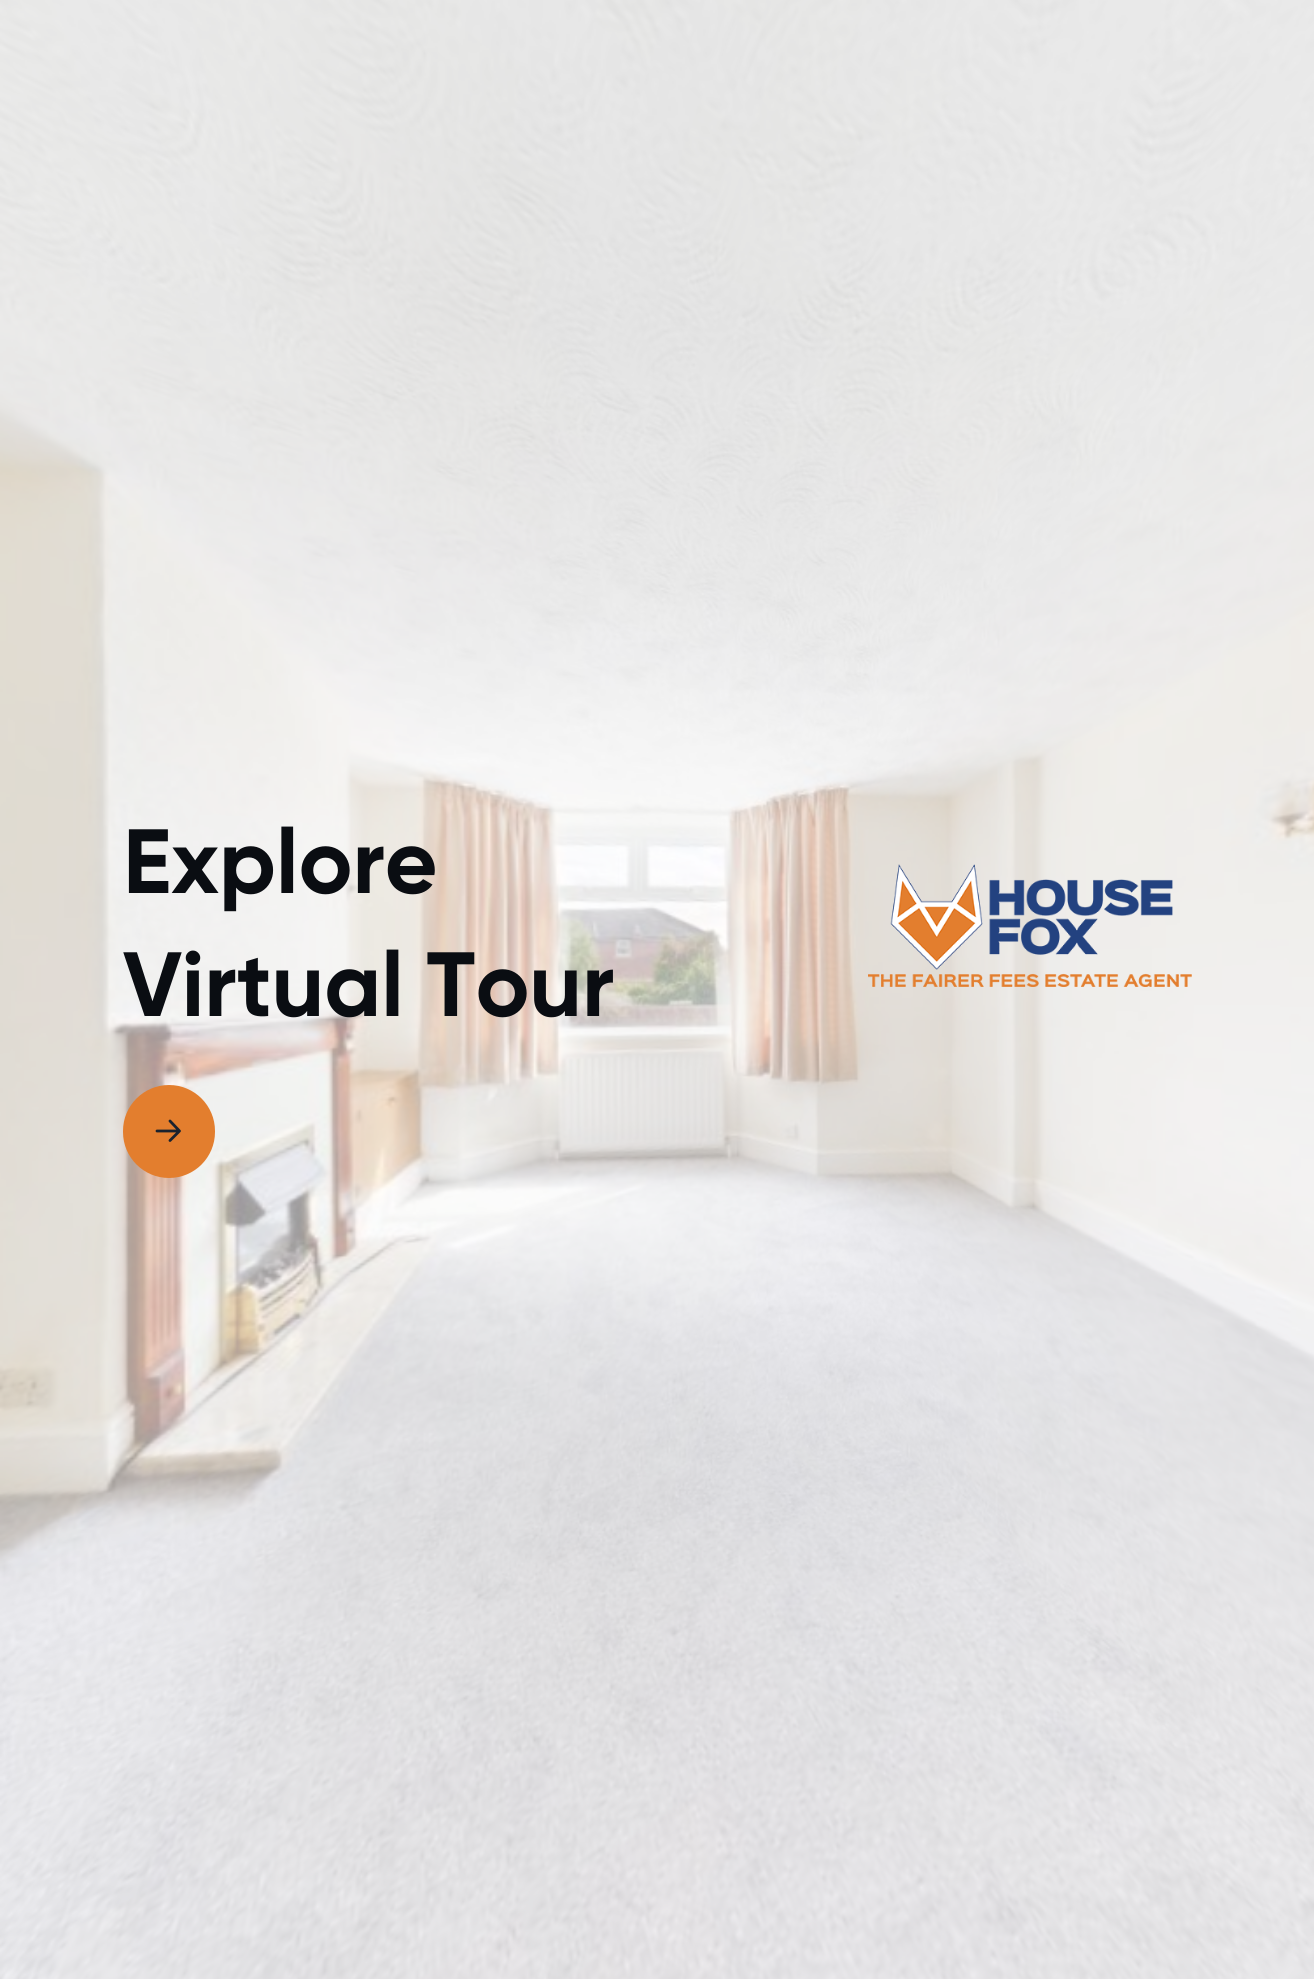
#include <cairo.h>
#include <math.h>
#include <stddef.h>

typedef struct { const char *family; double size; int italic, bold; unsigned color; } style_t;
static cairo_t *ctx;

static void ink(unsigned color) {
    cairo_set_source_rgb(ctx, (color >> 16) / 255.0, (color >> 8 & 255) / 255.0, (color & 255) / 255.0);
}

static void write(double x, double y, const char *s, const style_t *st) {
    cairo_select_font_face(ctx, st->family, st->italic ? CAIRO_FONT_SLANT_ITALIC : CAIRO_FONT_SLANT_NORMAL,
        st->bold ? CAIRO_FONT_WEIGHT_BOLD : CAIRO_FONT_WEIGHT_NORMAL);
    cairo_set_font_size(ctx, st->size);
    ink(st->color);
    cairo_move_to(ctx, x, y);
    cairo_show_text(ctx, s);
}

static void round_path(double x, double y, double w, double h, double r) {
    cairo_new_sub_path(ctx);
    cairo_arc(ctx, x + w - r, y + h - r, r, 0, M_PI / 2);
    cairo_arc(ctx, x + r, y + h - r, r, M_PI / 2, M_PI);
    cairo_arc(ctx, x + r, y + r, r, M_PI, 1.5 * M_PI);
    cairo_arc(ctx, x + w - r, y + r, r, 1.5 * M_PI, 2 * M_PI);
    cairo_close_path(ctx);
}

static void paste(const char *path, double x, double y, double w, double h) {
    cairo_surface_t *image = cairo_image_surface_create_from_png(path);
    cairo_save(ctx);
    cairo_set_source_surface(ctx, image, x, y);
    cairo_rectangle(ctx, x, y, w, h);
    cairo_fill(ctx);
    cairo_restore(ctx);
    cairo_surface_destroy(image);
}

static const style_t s1 = {"Gilroy", 91, 0, 1, 0x0a0d12};

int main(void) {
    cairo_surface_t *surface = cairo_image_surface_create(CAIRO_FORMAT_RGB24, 1314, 1979);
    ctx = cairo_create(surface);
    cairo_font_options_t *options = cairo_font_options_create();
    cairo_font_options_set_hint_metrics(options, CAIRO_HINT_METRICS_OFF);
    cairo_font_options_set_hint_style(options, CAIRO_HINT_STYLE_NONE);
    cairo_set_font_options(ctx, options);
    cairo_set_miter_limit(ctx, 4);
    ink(0xffffff);
    cairo_paint(ctx);
    paste("pic1.png", 0, 0, 1314, 1979);
    write(123, 893, "Explore", &s1);
    write(123, 1016, "Virtual Tour", &s1);
    paste("pic2.png", 868, 864, 324, 123);
    ink(0xe37e2e);
    round_path(123, 1085, 92, 93, 46);
    cairo_fill(ctx);
    cairo_new_path(ctx);
    cairo_move_to(ctx, 170, 1121);
    cairo_line_to(ctx, 179.5, 1131);
    cairo_line_to(ctx, 170, 1140.5);
    cairo_move_to(ctx, 157, 1131);
    cairo_line_to(ctx, 179.5, 1131);
    ink(0x1a222e);
    cairo_set_line_width(ctx, 2.8);
    cairo_set_line_cap(ctx, CAIRO_LINE_CAP_ROUND);
    cairo_set_line_join(ctx, CAIRO_LINE_JOIN_ROUND);
    cairo_stroke(ctx);
    cairo_surface_write_to_png(surface, "screenshot.png");
    cairo_font_options_destroy(options);
    cairo_destroy(ctx);
    cairo_surface_destroy(surface);
    return 0;
}
